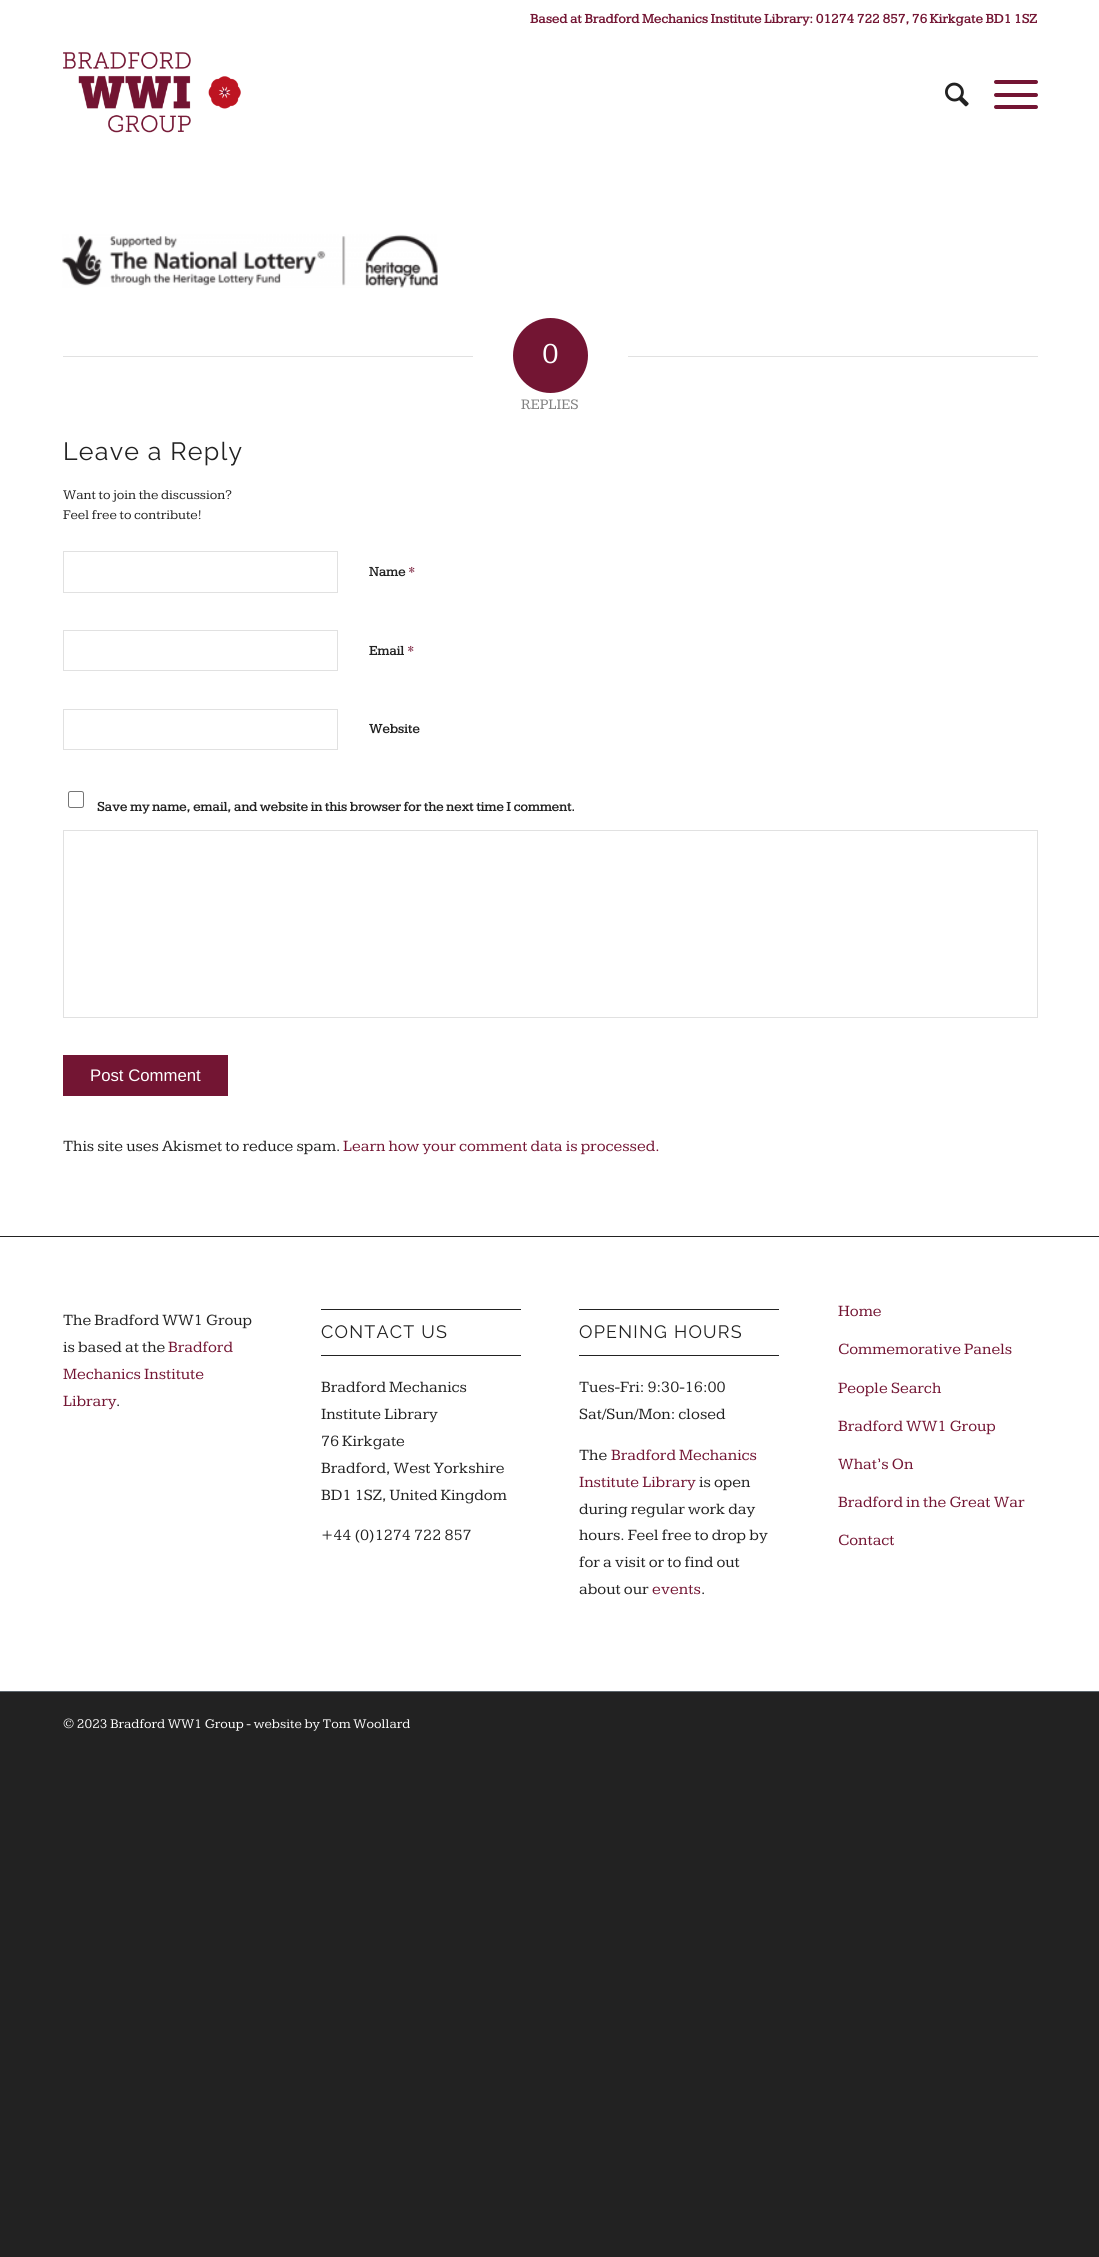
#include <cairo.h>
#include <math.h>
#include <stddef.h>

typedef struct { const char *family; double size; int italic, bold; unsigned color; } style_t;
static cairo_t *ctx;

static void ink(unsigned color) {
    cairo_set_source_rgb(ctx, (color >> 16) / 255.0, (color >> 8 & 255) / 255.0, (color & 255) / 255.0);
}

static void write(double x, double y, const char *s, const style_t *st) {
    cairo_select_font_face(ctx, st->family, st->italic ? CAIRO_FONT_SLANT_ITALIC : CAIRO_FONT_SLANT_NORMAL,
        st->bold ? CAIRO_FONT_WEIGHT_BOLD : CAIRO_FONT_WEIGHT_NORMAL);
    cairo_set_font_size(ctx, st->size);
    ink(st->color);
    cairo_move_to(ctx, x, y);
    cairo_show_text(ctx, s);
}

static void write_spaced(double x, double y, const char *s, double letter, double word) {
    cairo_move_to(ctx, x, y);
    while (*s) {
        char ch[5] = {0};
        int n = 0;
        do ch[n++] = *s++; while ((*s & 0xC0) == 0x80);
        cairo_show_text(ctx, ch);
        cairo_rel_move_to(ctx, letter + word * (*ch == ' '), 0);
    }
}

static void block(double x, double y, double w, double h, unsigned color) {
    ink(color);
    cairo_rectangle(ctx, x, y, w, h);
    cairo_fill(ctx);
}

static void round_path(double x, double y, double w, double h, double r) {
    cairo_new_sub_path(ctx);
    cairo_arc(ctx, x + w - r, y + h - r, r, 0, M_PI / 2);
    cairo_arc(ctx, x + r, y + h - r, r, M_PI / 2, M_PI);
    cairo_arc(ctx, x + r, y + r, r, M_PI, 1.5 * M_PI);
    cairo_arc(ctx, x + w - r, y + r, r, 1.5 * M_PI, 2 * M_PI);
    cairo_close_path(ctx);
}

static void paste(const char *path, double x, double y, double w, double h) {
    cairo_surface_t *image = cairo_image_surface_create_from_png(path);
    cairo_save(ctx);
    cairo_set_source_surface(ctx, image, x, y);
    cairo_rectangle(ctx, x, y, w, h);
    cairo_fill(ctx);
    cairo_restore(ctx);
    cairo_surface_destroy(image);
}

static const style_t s1 = {"Kameron", 13.75, 0, 1, 0x731533};
static const style_t s2 = {"Kameron", 30, 0, 0, 0xffffff};
static const style_t s3 = {"Kameron", 15, 0, 0, 0x808080};
static const style_t s4 = {"Kameron", 13.75, 0, 0, 0x222222};
static const style_t s5 = {"Kameron", 13.75, 0, 1, 0x222222};
static const style_t s6 = {"Kameron", 16.25, 0, 0, 0x731533};
static const style_t s7 = {"Liberation Sans", 16.75, 0, 0, 0xffffff};
static const style_t s8 = {"Kameron", 16.25, 0, 0, 0x222222};
static const style_t s9 = {"Kameron", 13.75, 0, 0, 0xffffff};

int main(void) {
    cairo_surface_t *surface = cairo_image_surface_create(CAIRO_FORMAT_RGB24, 1099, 2257);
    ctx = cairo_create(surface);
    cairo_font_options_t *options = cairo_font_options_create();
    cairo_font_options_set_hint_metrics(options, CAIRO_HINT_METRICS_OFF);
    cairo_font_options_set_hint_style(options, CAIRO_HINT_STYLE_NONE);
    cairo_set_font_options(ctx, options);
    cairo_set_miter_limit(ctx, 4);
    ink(0x222222);
    cairo_paint(ctx);
    block(0, 0, 1099, 1691, 0xffffff);
    write(530, 23, "Based at Bradford Mechanics Institute Library: 01274 722 857, 76 Kirkgate BD1 1SZ", &s1);
    paste("pic1.png", 63, 52, 178, 81);
    paste("pic2.png", 945, 82, 24, 25);
    round_path(994, 93, 44, 4, 2);
    cairo_fill(ctx);
    round_path(994, 80, 44, 4, 2);
    cairo_fill(ctx);
    round_path(994, 105, 44, 4, 2);
    cairo_fill(ctx);
    paste("pic3.png", 62, 234, 376, 54);
    block(63, 356, 410, 1, 0xe1e1e1);
    ink(0x731533);
    cairo_arc(ctx, 550.5, 355.5, 37.5, 0, 2 * M_PI);
    cairo_fill(ctx);
    write(542, 363, "0", &s2);
    block(628, 356, 410, 1, 0xe1e1e1);
    write(521, 409, "REPLIES", &s3);
    cairo_select_font_face(ctx, "Raleway Thin", CAIRO_FONT_SLANT_NORMAL, CAIRO_FONT_WEIGHT_NORMAL);
    cairo_set_font_size(ctx, 25);
    ink(0x222222);
    write_spaced(63, 460, "Leave a Reply", 1.25, 0);
    write(63, 499, "Want to join the discussion?", &s4);
    write(63, 519, "Feel free to contribute!", &s4);
    cairo_rectangle(ctx, 63.5, 551.5, 274, 41);
    ink(0xe1e1e1);
    cairo_set_line_width(ctx, 1);
    cairo_stroke(ctx);
    write(369, 576, "Name", &s5);
    write(408, 576, "*", &s6);
    cairo_rectangle(ctx, 63.5, 630.5, 274, 40);
    ink(0xe1e1e1);
    cairo_stroke(ctx);
    write(369, 655, "Email", &s5);
    write(407, 655, "*", &s6);
    cairo_rectangle(ctx, 63.5, 709.5, 274, 40);
    ink(0xe1e1e1);
    cairo_stroke(ctx);
    write(369, 733, "Website", &s5);
    round_path(68.5, 791.5, 15, 16, 2);
    ink(0x767676);
    cairo_stroke(ctx);
    write(97, 811, "Save my name, email, and website in this browser for the next time I comment.", &s5);
    cairo_rectangle(ctx, 63.5, 830.5, 974, 187);
    ink(0xe1e1e1);
    cairo_stroke(ctx);
    block(63, 1055, 165, 41, 0x731533);
    write(90, 1081, "Post Comment", &s7);
    write(63, 1151, "This site uses Akismet to reduce spam.", &s8);
    write(343, 1151, "Learn how your comment data is processed.", &s6);
    block(0, 1236, 1099, 1, 0x222222);
    write(63, 1325, "The Bradford WW1 Group", &s8);
    write(63, 1352, "is based at the", &s8);
    write(168, 1352, "Bradford", &s6);
    write(63, 1379, "Mechanics Institute", &s6);
    write(63, 1406, "Library", &s6);
    write(116, 1406, ".", &s8);
    block(321, 1309, 200, 1, 0x222222);
    block(321, 1355, 200, 1, 0x222222);
    cairo_select_font_face(ctx, "Raleway Thin", CAIRO_FONT_SLANT_NORMAL, CAIRO_FONT_WEIGHT_NORMAL);
    cairo_set_font_size(ctx, 17.9);
    write_spaced(321, 1338, "CONTACT US", 1.25, 0);
    write(321, 1392, "Bradford Mechanics", &s8);
    write(321, 1419, "Institute Library", &s8);
    write(321, 1446, "76 Kirkgate", &s8);
    write(321, 1473, "Bradford, West Yorkshire", &s8);
    write(321, 1500, "BD1 1SZ, United Kingdom", &s8);
    write(321, 1540, "+44 (0)1274 722 857", &s8);
    block(579, 1309, 200, 1, 0x222222);
    block(579, 1355, 200, 1, 0x222222);
    cairo_select_font_face(ctx, "Raleway Thin", CAIRO_FONT_SLANT_NORMAL, CAIRO_FONT_WEIGHT_NORMAL);
    cairo_set_font_size(ctx, 17.9);
    write_spaced(579, 1338, "OPENING HOURS", 1.25, 0);
    write(579, 1392, "Tues-Fri: 9:30-16:00", &s8);
    write(579, 1419, "Sat/Sun/Mon: closed", &s8);
    write(579, 1460, "The", &s8);
    write(611, 1460, "Bradford Mechanics", &s6);
    write(579, 1487, "Institute Library", &s6);
    write(699, 1487, "is open", &s8);
    write(579, 1514, "during regular work day", &s8);
    write(579, 1540, "hours. Feel free to drop by", &s8);
    write(579, 1567, "for a visit or to find out", &s8);
    write(579, 1594, "about our", &s8);
    write(652, 1594, "events", &s6);
    write(701, 1594, ".", &s8);
    write(838, 1316, "Home", &s6);
    write(838, 1354, "Commemorative Panels", &s6);
    write(838, 1393, "People Search", &s6);
    write(838, 1431, "Bradford WW1 Group", &s6);
    write(838, 1469, "What’s On", &s6);
    write(838, 1507, "Bradford in the Great War", &s6);
    write(838, 1545, "Contact", &s6);
    block(0, 1691, 1099, 1, 0x5b646b);
    write(63, 1728, "© 2023 Bradford WW1 Group - website by Tom Woollard", &s9);
    cairo_surface_write_to_png(surface, "screenshot.png");
    cairo_font_options_destroy(options);
    cairo_destroy(ctx);
    cairo_surface_destroy(surface);
    return 0;
}
